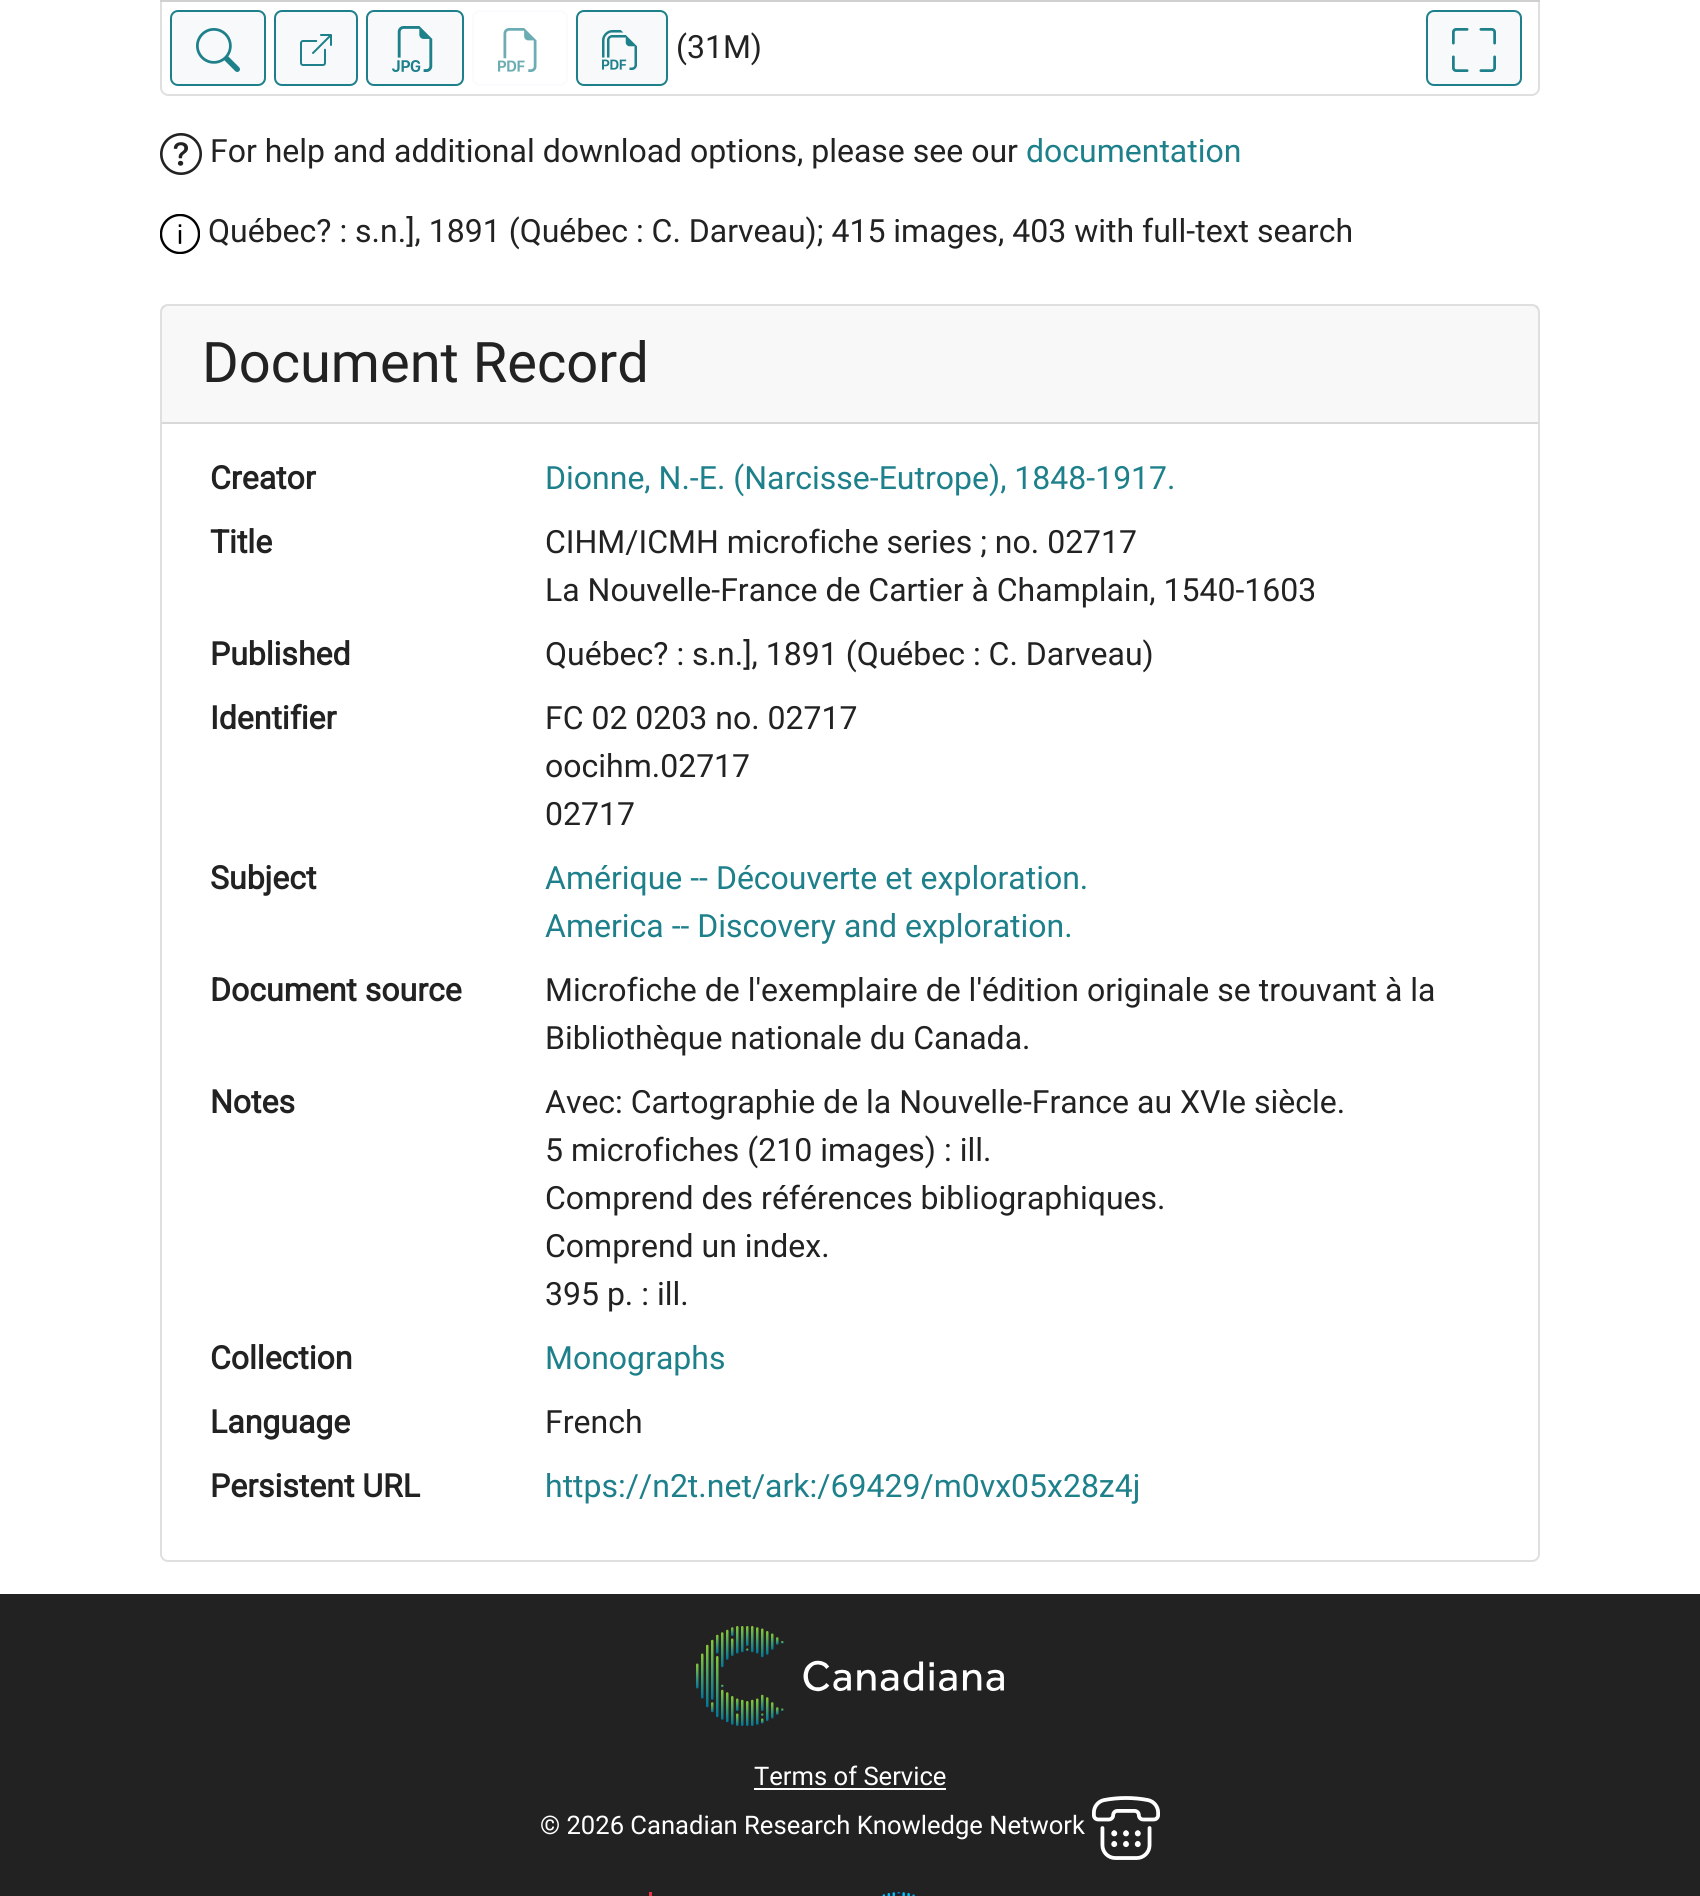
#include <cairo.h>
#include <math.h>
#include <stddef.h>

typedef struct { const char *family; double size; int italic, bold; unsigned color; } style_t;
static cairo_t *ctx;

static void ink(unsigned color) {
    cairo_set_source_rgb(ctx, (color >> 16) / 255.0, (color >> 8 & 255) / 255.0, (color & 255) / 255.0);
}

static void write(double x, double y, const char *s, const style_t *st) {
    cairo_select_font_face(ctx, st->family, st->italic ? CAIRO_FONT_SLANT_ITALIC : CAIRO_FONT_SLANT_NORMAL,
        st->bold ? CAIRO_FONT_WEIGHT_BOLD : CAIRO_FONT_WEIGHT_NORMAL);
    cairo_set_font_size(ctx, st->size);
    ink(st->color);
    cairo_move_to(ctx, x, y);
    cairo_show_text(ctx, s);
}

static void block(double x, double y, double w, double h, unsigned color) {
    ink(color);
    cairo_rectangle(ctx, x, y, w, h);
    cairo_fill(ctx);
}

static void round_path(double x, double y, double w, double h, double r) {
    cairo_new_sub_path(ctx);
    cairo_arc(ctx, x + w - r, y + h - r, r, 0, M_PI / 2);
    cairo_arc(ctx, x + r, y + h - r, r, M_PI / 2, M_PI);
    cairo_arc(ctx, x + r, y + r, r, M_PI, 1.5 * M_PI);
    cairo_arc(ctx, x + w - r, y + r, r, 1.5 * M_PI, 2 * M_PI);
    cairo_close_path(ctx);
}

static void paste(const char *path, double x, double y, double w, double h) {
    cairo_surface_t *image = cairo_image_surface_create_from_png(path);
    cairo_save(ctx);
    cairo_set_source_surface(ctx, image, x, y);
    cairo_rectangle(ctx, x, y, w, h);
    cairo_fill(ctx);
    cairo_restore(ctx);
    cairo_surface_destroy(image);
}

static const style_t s1 = {"Roboto", 32, 0, 0, 0x222222};
static const style_t s2 = {"Roboto", 32, 0, 0, 0x1d808b};
static const style_t s3 = {"Roboto", 56, 0, 0, 0x222222};
static const style_t s4 = {"Roboto", 32, 0, 1, 0x222222};
static const style_t s5 = {"Roboto", 25.6, 0, 0, 0xffffff};

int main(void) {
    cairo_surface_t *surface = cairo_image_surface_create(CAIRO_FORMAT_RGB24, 1700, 1896);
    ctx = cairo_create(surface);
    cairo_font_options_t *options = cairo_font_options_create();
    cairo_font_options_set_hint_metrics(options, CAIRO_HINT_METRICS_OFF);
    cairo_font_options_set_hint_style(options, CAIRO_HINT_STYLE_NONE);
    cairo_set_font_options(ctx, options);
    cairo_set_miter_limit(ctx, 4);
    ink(0xffffff);
    cairo_paint(ctx);
    cairo_rectangle(ctx, 161, -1, 1378, 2);
    ink(0xd0d0d0);
    cairo_stroke(ctx);
    ink(0xdfdfdf);
    cairo_set_fill_rule(ctx, CAIRO_FILL_RULE_EVEN_ODD);
    cairo_new_path(ctx);
    cairo_move_to(ctx, 160, 2);
    cairo_line_to(ctx, 1540, 2);
    cairo_line_to(ctx, 1540, 88);
    cairo_curve_to(ctx, 1540, 92, 1536, 96, 1532, 96);
    cairo_line_to(ctx, 168, 96);
    cairo_curve_to(ctx, 164, 96, 160, 92, 160, 88);
    cairo_close_path(ctx);
    cairo_move_to(ctx, 162, 2);
    cairo_line_to(ctx, 1538, 2);
    cairo_line_to(ctx, 1538, 88);
    cairo_curve_to(ctx, 1538, 91, 1535, 94, 1532, 94);
    cairo_line_to(ctx, 168, 94);
    cairo_curve_to(ctx, 165, 94, 162, 91, 162, 88);
    cairo_close_path(ctx);
    cairo_fill(ctx);
    ink(0xf8f9fa);
    round_path(171, 11, 94, 74, 7);
    cairo_fill_preserve(ctx);
    ink(0x1d808b);
    cairo_stroke(ctx);
    paste("pic1.png", 196, 28, 44, 44);
    ink(0xf8f9fa);
    round_path(275, 11, 82, 74, 7);
    cairo_fill_preserve(ctx);
    ink(0x1d808b);
    cairo_stroke(ctx);
    paste("pic2.png", 300, 34, 32, 32);
    ink(0xf8f9fa);
    round_path(367, 11, 96, 74, 7);
    cairo_fill_preserve(ctx);
    ink(0x1d808b);
    cairo_stroke(ctx);
    paste("pic3.png", 392, 26, 41, 46);
    round_path(473, 11, 94, 74, 7);
    ink(0xfafbfc);
    cairo_stroke(ctx);
    paste("pic4.png", 498, 28, 39, 44);
    ink(0xf8f9fa);
    round_path(577, 11, 90, 74, 7);
    cairo_fill_preserve(ctx);
    ink(0x1d808b);
    cairo_stroke(ctx);
    paste("pic5.png", 602, 30, 35, 40);
    write(676, 58, "(31M)", &s1);
    ink(0xf8f9fa);
    round_path(1427, 11, 94, 74, 7);
    cairo_fill_preserve(ctx);
    ink(0x1d808b);
    cairo_stroke(ctx);
    paste("pic6.png", 1452, 28, 44, 44);
    paste("pic7.png", 160, 133, 42, 42);
    write(210, 162, "For help and additional download options, please see our", &s1);
    write(1026, 162, "documentation", &s2);
    paste("pic8.png", 160, 214, 40, 40);
    write(208, 242, "Québec? : s.n.], 1891 (Québec : C. Darveau); 415 images, 403 with full-text search", &s1);
    round_path(161, 305, 1378, 1256, 7);
    ink(0xdfdfdf);
    cairo_stroke(ctx);
    cairo_set_source_rgba(ctx, 0, 0, 0, 0.03);
    cairo_rectangle(ctx, 162, 306, 1376, 116);
    cairo_fill(ctx);
    block(162, 422, 1376, 2, 0xd8d8d8);
    write(202, 382, "Document Record", &s3);
    write(210, 489, "Creator", &s4);
    write(545, 489, "Dionne, N.-E. (Narcisse-Eutrope), 1848-1917.", &s2);
    write(210, 553, "Title", &s4);
    write(545, 553, "CIHM/ICMH microfiche series ; no. 02717", &s1);
    write(545, 601, "La Nouvelle-France de Cartier à Champlain, 1540-1603", &s1);
    write(210, 665, "Published", &s4);
    write(545, 665, "Québec? : s.n.], 1891 (Québec : C. Darveau)", &s1);
    write(210, 729, "Identifier", &s4);
    write(545, 729, "FC 02 0203 no. 02717", &s1);
    write(545, 777, "oocihm.02717", &s1);
    write(545, 825, "02717", &s1);
    write(210, 889, "Subject", &s4);
    write(545, 889, "Amérique -- Découverte et exploration.", &s2);
    write(545, 937, "America -- Discovery and exploration.", &s2);
    write(210, 1001, "Document source", &s4);
    write(545, 1001, "Microfiche de l'exemplaire de l'édition originale se trouvant à la", &s1);
    write(545, 1049, "Bibliothèque nationale du Canada.", &s1);
    write(210, 1113, "Notes", &s4);
    write(545, 1113, "Avec: Cartographie de la Nouvelle-France au XVIe siècle.", &s1);
    write(545, 1161, "5 microfiches (210 images) : ill.", &s1);
    write(545, 1209, "Comprend des références bibliographiques.", &s1);
    write(545, 1257, "Comprend un index.", &s1);
    write(545, 1305, "395 p. : ill.", &s1);
    write(210, 1369, "Collection", &s4);
    write(545, 1369, "Monographs", &s2);
    write(210, 1433, "Language", &s4);
    write(545, 1433, "French", &s1);
    write(210, 1497, "Persistent URL", &s4);
    write(545, 1497, "https://n2t.net/ark:/69429/m0vx05x28z4j", &s2);
    block(0, 1594, 1700, 302, 0x222222);
    paste("pic9.png", 696, 1626, 308, 100);
    write(754, 1785, "Terms of Service", &s5);
    block(754, 1788, 192, 2, 0xffffff);
    write(540, 1834, "© 2026 Canadian Research Knowledge Network", &s5);
    paste("pic10.png", 1092, 1796, 68, 64);
    block(649, 1892, 3, 4, 0xea3244);
    paste("pic11.png", 882, 1892, 33, 4);
    cairo_surface_write_to_png(surface, "screenshot.png");
    cairo_font_options_destroy(options);
    cairo_destroy(ctx);
    cairo_surface_destroy(surface);
    return 0;
}
